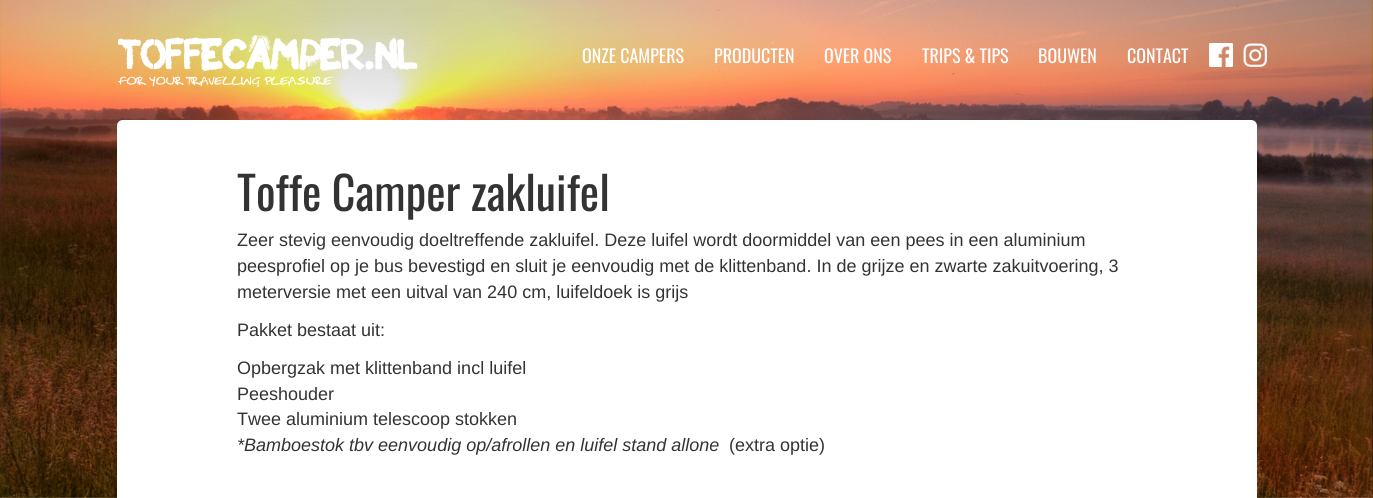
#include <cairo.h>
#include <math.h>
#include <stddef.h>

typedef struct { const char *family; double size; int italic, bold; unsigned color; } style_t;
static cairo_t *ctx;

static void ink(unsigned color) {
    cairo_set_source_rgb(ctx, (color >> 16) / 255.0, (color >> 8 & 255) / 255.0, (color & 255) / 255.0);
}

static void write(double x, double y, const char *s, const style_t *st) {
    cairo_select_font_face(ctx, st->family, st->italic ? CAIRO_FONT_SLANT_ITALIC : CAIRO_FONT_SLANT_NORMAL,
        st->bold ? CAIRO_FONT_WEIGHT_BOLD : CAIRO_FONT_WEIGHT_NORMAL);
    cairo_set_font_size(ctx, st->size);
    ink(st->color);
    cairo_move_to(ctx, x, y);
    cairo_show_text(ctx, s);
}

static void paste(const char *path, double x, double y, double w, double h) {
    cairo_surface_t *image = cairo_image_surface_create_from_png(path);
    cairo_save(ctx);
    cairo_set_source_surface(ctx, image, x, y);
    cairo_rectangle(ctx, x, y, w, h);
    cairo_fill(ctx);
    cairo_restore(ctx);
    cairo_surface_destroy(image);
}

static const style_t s1 = {"Oswald", 18, 0, 0, 0xffffff};
static const style_t s2 = {"Oswald", 46, 0, 0, 0x333333};
static const style_t s3 = {"Liberation Sans", 18, 0, 0, 0x333333};
static const style_t s4 = {"Liberation Sans", 18, 1, 0, 0x333333};

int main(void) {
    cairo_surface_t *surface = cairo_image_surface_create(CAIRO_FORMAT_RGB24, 1373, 498);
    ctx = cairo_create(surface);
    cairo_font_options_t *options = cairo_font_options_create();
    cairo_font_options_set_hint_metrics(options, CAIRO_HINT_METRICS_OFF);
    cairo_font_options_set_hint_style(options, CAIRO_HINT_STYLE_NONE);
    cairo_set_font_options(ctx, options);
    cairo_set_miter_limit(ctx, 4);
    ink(0xffffff);
    cairo_paint(ctx);
    paste("pic1.png", 0, 0, 1373, 498);
    paste("pic2.png", 118, 35, 300, 52);
    write(582, 63, "ONZE CAMPERS", &s1);
    write(714, 63, "PRODUCTEN", &s1);
    write(824, 63, "OVER ONS", &s1);
    write(922, 63, "TRIPS & TIPS", &s1);
    write(1038, 63, "BOUWEN", &s1);
    write(1127, 63, "CONTACT", &s1);
    paste("pic3.png", 1209, 43, 24, 24);
    paste("pic4.png", 1243, 43, 24, 24);
    cairo_new_path(ctx);
    cairo_move_to(ctx, 123, 120);
    cairo_line_to(ctx, 1251, 120);
    cairo_curve_to(ctx, 1254.5, 120, 1257, 122.5, 1257, 126);
    cairo_line_to(ctx, 1257, 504);
    cairo_line_to(ctx, 117, 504);
    cairo_line_to(ctx, 117, 126);
    cairo_curve_to(ctx, 117, 122.5, 119.5, 120, 123, 120);
    cairo_close_path(ctx);
    cairo_fill(ctx);
    write(237, 211, "Toffe Camper zakluifel", &s2);
    write(237, 246, "Zeer stevig eenvoudig doeltreffende zakluifel. Deze luifel wordt doormiddel van een pees in een aluminium", &s3);
    write(237, 272, "peesprofiel op je bus bevestigd en sluit je eenvoudig met de klittenband. In de grijze en zwarte zakuitvoering, 3", &s3);
    write(237, 298, "meterversie met een uitval van 240 cm, luifeldoek is grijs", &s3);
    write(237, 336, "Pakket bestaat uit:", &s3);
    write(237, 374, "Opbergzak met klittenband incl luifel", &s3);
    write(237, 400, "Peeshouder", &s3);
    write(237, 425, "Twee aluminium telescoop stokken", &s3);
    write(237, 451, "*Bamboestok tbv eenvoudig op/afrollen en luifel stand allone", &s4);
    write(729, 451, "(extra optie)", &s3);
    cairo_surface_write_to_png(surface, "screenshot.png");
    cairo_font_options_destroy(options);
    cairo_destroy(ctx);
    cairo_surface_destroy(surface);
    return 0;
}
